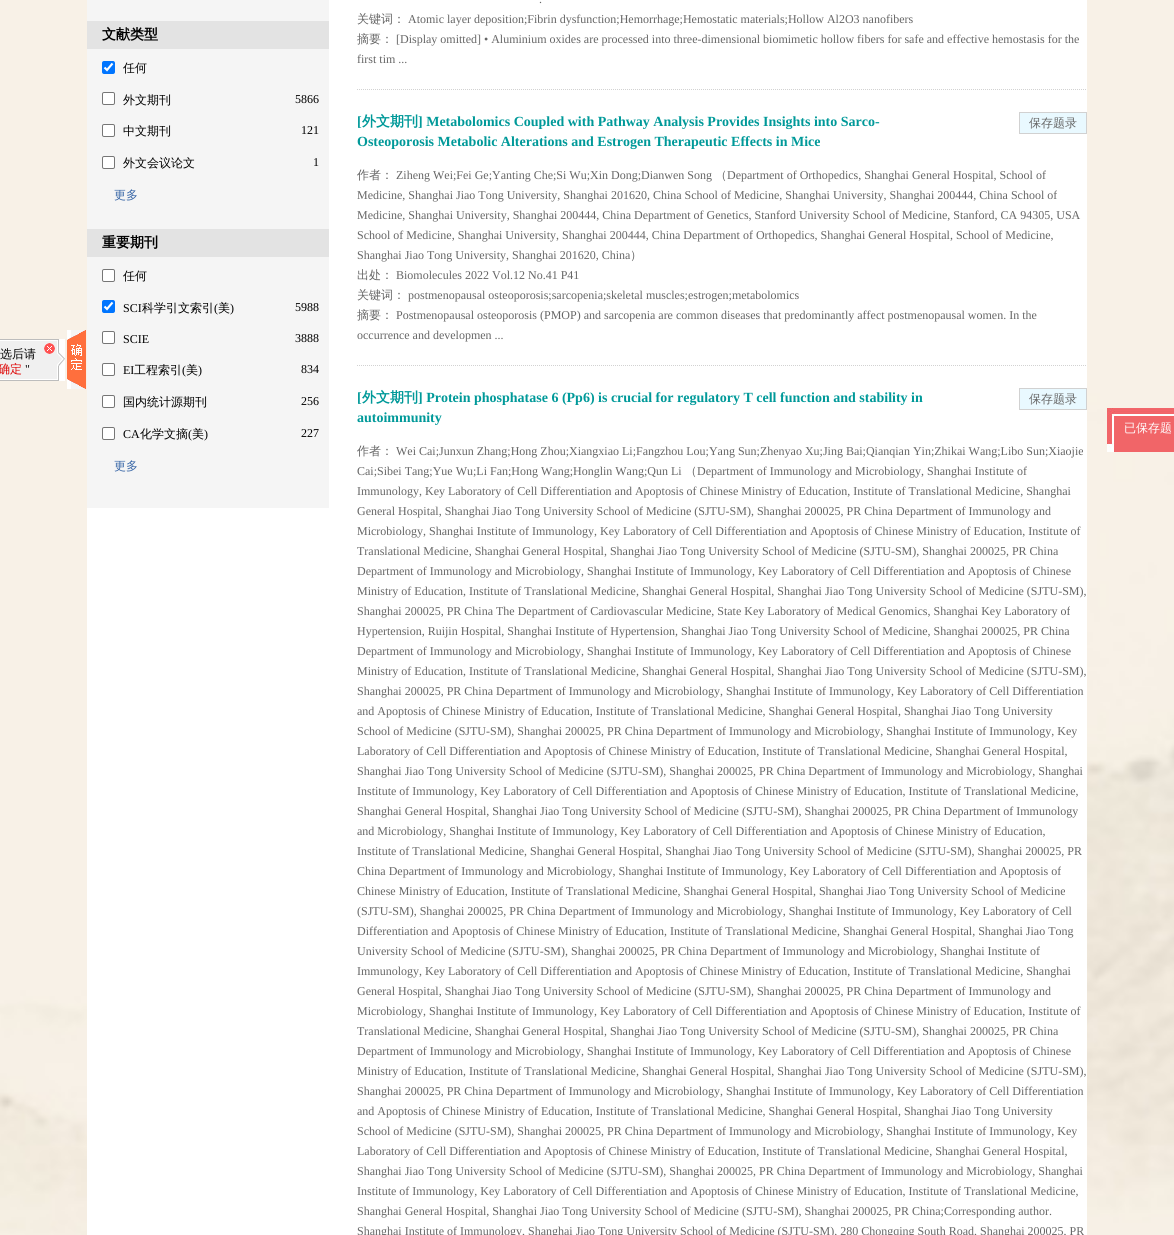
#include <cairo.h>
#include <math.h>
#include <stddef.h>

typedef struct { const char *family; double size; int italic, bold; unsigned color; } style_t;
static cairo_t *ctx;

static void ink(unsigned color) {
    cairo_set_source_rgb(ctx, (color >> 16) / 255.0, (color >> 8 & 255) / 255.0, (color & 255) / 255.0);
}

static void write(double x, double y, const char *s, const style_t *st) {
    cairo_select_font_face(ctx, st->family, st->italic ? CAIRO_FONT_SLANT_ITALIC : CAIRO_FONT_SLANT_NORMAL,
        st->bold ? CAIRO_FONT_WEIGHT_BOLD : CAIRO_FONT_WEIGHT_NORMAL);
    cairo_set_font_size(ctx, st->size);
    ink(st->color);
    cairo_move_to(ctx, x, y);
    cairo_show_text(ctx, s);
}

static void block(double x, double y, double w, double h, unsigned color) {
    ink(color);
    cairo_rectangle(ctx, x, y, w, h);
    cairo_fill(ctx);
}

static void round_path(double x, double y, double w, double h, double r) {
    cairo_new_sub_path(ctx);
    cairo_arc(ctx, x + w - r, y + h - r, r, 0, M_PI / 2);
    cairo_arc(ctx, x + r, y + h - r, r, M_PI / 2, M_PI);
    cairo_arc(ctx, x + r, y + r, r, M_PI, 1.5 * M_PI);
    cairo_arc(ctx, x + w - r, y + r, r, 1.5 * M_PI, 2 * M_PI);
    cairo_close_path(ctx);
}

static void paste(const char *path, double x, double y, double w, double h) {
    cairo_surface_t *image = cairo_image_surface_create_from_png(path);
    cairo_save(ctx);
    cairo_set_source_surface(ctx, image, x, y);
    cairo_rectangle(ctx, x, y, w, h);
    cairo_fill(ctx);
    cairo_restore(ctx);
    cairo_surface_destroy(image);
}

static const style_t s1 = {"WenQuanYi Zen Hei Medium", 12, 0, 0, 0x000000};
static const style_t s2 = {"WenQuanYi Zen Hei Medium", 12, 0, 0, 0xde0000};
static const style_t s3 = {"Liberation Serif", 12, 0, 0, 0x000000};
static const style_t s4 = {"WenQuanYi Zen Hei", 14, 0, 1, 0x000000};
static const style_t s5 = {"WenQuanYi Zen Hei Medium", 12, 0, 0, 0x3967a7};
static const style_t s6 = {"Liberation Serif", 12, 0, 0, 0x666666};
static const style_t s7 = {"WenQuanYi Zen Hei Medium", 12, 0, 0, 0x666666};
static const style_t s8 = {"Liberation Serif", 14, 0, 1, 0x009999};
static const style_t s9 = {"WenQuanYi Zen Hei", 14, 0, 1, 0x009999};
static const style_t s10 = {"WenQuanYi Zen Hei Medium", 12, 0, 0, 0xffffff};

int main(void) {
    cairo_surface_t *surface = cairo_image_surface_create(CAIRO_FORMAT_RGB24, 1174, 1235);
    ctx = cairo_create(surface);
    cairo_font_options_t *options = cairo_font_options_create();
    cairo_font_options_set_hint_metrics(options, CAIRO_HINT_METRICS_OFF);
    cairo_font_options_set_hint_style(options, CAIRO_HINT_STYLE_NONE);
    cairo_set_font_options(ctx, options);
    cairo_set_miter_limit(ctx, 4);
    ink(0xffffff);
    cairo_paint(ctx);
    paste("pic1.png", 0, 0, 1174, 1235);
    block(87, 0, 1000, 1235, 0xffffff);
    block(87, 0, 242, 508, 0xf5f5f5);
    paste("pic2.png", 0, 339, 65, 42);
    write(0, 358, "选后请", &s1);
    write(-2, 373, "确定", &s2);
    write(25, 373, "\"", &s3);
    paste("pic3.png", 44, 343, 11, 11);
    paste("pic4.png", 67, 330, 19, 59);
    block(87, 21, 242, 28, 0xe3e3e3);
    write(102, 39, "文献类型", &s4);
    ink(0x0075ff);
    round_path(102, 61, 13, 13, 2);
    cairo_fill(ctx);
    cairo_new_path(ctx);
    cairo_move_to(ctx, 104.5, 67.5);
    cairo_line_to(ctx, 107, 70);
    cairo_line_to(ctx, 112.5, 63.5);
    ink(0xffffff);
    cairo_set_line_width(ctx, 2.1);
    cairo_stroke(ctx);
    write(123, 72, "任何", &s1);
    ink(0xffffff);
    round_path(102.5, 92.5, 12, 12, 1.5);
    cairo_fill_preserve(ctx);
    ink(0x767676);
    cairo_set_line_width(ctx, 1);
    cairo_stroke(ctx);
    write(123, 104, "外文期刊", &s1);
    write(295, 103, "5866", &s3);
    ink(0xffffff);
    round_path(102.5, 124.5, 12, 12, 1.5);
    cairo_fill_preserve(ctx);
    ink(0x767676);
    cairo_stroke(ctx);
    write(123, 135, "中文期刊", &s1);
    write(301, 134, "121", &s3);
    ink(0xffffff);
    round_path(102.5, 156.5, 12, 12, 1.5);
    cairo_fill_preserve(ctx);
    ink(0x767676);
    cairo_stroke(ctx);
    write(123, 167, "外文会议论文", &s1);
    write(313, 166, "1", &s3);
    write(114, 199, "更多", &s5);
    block(87, 229, 242, 28, 0xe3e3e3);
    write(102, 247, "重要期刊", &s4);
    ink(0xffffff);
    round_path(102.5, 269.5, 12, 12, 1.5);
    cairo_fill_preserve(ctx);
    ink(0x767676);
    cairo_stroke(ctx);
    write(123, 280, "任何", &s1);
    ink(0x0075ff);
    round_path(102, 300, 13, 13, 2);
    cairo_fill(ctx);
    cairo_new_path(ctx);
    cairo_move_to(ctx, 104.5, 306.5);
    cairo_line_to(ctx, 107, 309);
    cairo_line_to(ctx, 112.5, 302.5);
    ink(0xffffff);
    cairo_set_line_width(ctx, 2.1);
    cairo_stroke(ctx);
    write(123, 312, "SCI", &s3);
    write(142, 312, "科学引文索引", &s1);
    write(214, 312, "(", &s3);
    write(218, 312, "美", &s1);
    write(230, 312, ")", &s3);
    write(295, 311, "5988", &s3);
    ink(0xffffff);
    round_path(102.5, 331.5, 12, 12, 1.5);
    cairo_fill_preserve(ctx);
    ink(0x767676);
    cairo_set_line_width(ctx, 1);
    cairo_stroke(ctx);
    write(123, 343, "SCIE", &s3);
    write(295, 342, "3888", &s3);
    ink(0xffffff);
    round_path(102.5, 363.5, 12, 12, 1.5);
    cairo_fill_preserve(ctx);
    ink(0x767676);
    cairo_stroke(ctx);
    write(123, 374, "EI", &s3);
    write(134, 374, "工程索引", &s1);
    write(182, 374, "(", &s3);
    write(186, 374, "美", &s1);
    write(198, 374, ")", &s3);
    write(301, 373, "834", &s3);
    ink(0xffffff);
    round_path(102.5, 395.5, 12, 12, 1.5);
    cairo_fill_preserve(ctx);
    ink(0x767676);
    cairo_stroke(ctx);
    write(123, 406, "国内统计源期刊", &s1);
    write(301, 405, "256", &s3);
    ink(0xffffff);
    round_path(102.5, 427.5, 12, 12, 1.5);
    cairo_fill_preserve(ctx);
    ink(0x767676);
    cairo_stroke(ctx);
    write(123, 438, "CA", &s3);
    write(140, 438, "化学文摘", &s1);
    write(188, 438, "(", &s3);
    write(192, 438, "美", &s1);
    write(204, 438, ")", &s3);
    write(301, 437, "227", &s3);
    write(114, 470, "更多", &s5);
    cairo_new_path(ctx);
    cairo_move_to(ctx, 357, 89.5);
    cairo_line_to(ctx, 1087, 89.5);
    ink(0xd2d2d2);
    cairo_set_dash(ctx, (double[]){1, 1}, 2, 0);
    cairo_stroke(ctx);
    write(539, 3, ".", &s6);
    write(357, 23, "关键词：", &s7);
    write(408, 23, "Atomic layer deposition;Fibrin dysfunction;Hemorrhage;Hemostatic materials;Hollow Al2O3 nanofibers", &s6);
    write(357, 43, "摘要：", &s7);
    write(396, 43, "[Display omitted] • Aluminium oxides are processed into three-dimensional biomimetic hollow fibers for safe and effective hemostasis for the", &s6);
    write(357, 63, "first tim ...", &s6);
    cairo_new_path(ctx);
    cairo_move_to(ctx, 357, 365.5);
    cairo_line_to(ctx, 1087, 365.5);
    ink(0xd2d2d2);
    cairo_stroke(ctx);
    write(357, 126, "[", &s8);
    write(362, 126, "外文期刊", &s9);
    write(418, 126, "] Metabolomics Coupled with Pathway Analysis Provides Insights into Sarco-", &s8);
    write(357, 146, "Osteoporosis Metabolic Alterations and Estrogen Therapeutic Effects in Mice", &s8);
    ink(0xe9f9ff);
    cairo_rectangle(ctx, 1019.5, 112.5, 67, 21);
    cairo_fill_preserve(ctx);
    ink(0xd1d1d1);
    cairo_set_dash(ctx, NULL, 0, 0);
    cairo_stroke(ctx);
    write(1029, 127, "保存题录", &s7);
    write(357, 179, "作者：", &s7);
    write(396, 179, "Ziheng Wei;Fei Ge;Yanting Che;Si Wu;Xin Dong;Dianwen Song", &s6);
    write(715, 179, "（", &s7);
    write(727, 179, "Department of Orthopedics, Shanghai General Hospital, School of", &s6);
    write(357, 199, "Medicine, Shanghai Jiao Tong University, Shanghai 201620, China School of Medicine, Shanghai University, Shanghai 200444, China School of", &s6);
    write(357, 219, "Medicine, Shanghai University, Shanghai 200444, China Department of Genetics, Stanford University School of Medicine, Stanford, CA 94305, USA", &s6);
    write(357, 239, "School of Medicine, Shanghai University, Shanghai 200444, China Department of Orthopedics, Shanghai General Hospital, School of Medicine,", &s6);
    write(357, 259, "Shanghai Jiao Tong University, Shanghai 201620, China", &s6);
    write(630, 259, "）", &s7);
    write(357, 279, "出处：", &s7);
    write(396, 279, "Biomolecules 2022 Vol.12 No.41 P41", &s6);
    write(357, 299, "关键词：", &s7);
    write(408, 299, "postmenopausal osteoporosis;sarcopenia;skeletal muscles;estrogen;metabolomics", &s6);
    write(357, 319, "摘要：", &s7);
    write(396, 319, "Postmenopausal osteoporosis (PMOP) and sarcopenia are common diseases that predominantly affect postmenopausal women. In the", &s6);
    write(357, 339, "occurrence and developmen ...", &s6);
    write(357, 402, "[", &s8);
    write(362, 402, "外文期刊", &s9);
    write(418, 402, "] Protein phosphatase 6 (Pp6) is crucial for regulatory T cell function and stability in", &s8);
    write(357, 422, "autoimmunity", &s8);
    ink(0xe9f9ff);
    cairo_rectangle(ctx, 1019.5, 388.5, 67, 21);
    cairo_fill_preserve(ctx);
    ink(0xd1d1d1);
    cairo_stroke(ctx);
    write(1029, 403, "保存题录", &s7);
    write(357, 455, "作者：", &s7);
    write(396, 455, "Wei Cai;Junxun Zhang;Hong Zhou;Xiangxiao Li;Fangzhou Lou;Yang Sun;Zhenyao Xu;Jing Bai;Qianqian Yin;Zhikai Wang;Libo Sun;Xiaojie", &s6);
    write(357, 475, "Cai;Sibei Tang;Yue Wu;Li Fan;Hong Wang;Honglin Wang;Qun Li", &s6);
    write(685, 475, "（", &s7);
    write(697, 475, "Department of Immunology and Microbiology, Shanghai Institute of", &s6);
    write(357, 495, "Immunology, Key Laboratory of Cell Differentiation and Apoptosis of Chinese Ministry of Education, Institute of Translational Medicine, Shanghai", &s6);
    write(357, 515, "General Hospital, Shanghai Jiao Tong University School of Medicine (SJTU-SM), Shanghai 200025, PR China Department of Immunology and", &s6);
    write(357, 535, "Microbiology, Shanghai Institute of Immunology, Key Laboratory of Cell Differentiation and Apoptosis of Chinese Ministry of Education, Institute of", &s6);
    write(357, 555, "Translational Medicine, Shanghai General Hospital, Shanghai Jiao Tong University School of Medicine (SJTU-SM), Shanghai 200025, PR China", &s6);
    write(357, 575, "Department of Immunology and Microbiology, Shanghai Institute of Immunology, Key Laboratory of Cell Differentiation and Apoptosis of Chinese", &s6);
    write(357, 595, "Ministry of Education, Institute of Translational Medicine, Shanghai General Hospital, Shanghai Jiao Tong University School of Medicine (SJTU-SM),", &s6);
    write(357, 615, "Shanghai 200025, PR China The Department of Cardiovascular Medicine, State Key Laboratory of Medical Genomics, Shanghai Key Laboratory of", &s6);
    write(357, 635, "Hypertension, Ruijin Hospital, Shanghai Institute of Hypertension, Shanghai Jiao Tong University School of Medicine, Shanghai 200025, PR China", &s6);
    write(357, 655, "Department of Immunology and Microbiology, Shanghai Institute of Immunology, Key Laboratory of Cell Differentiation and Apoptosis of Chinese", &s6);
    write(357, 675, "Ministry of Education, Institute of Translational Medicine, Shanghai General Hospital, Shanghai Jiao Tong University School of Medicine (SJTU-SM),", &s6);
    write(357, 695, "Shanghai 200025, PR China Department of Immunology and Microbiology, Shanghai Institute of Immunology, Key Laboratory of Cell Differentiation", &s6);
    write(357, 715, "and Apoptosis of Chinese Ministry of Education, Institute of Translational Medicine, Shanghai General Hospital, Shanghai Jiao Tong University", &s6);
    write(357, 735, "School of Medicine (SJTU-SM), Shanghai 200025, PR China Department of Immunology and Microbiology, Shanghai Institute of Immunology, Key", &s6);
    write(357, 755, "Laboratory of Cell Differentiation and Apoptosis of Chinese Ministry of Education, Institute of Translational Medicine, Shanghai General Hospital,", &s6);
    write(357, 775, "Shanghai Jiao Tong University School of Medicine (SJTU-SM), Shanghai 200025, PR China Department of Immunology and Microbiology, Shanghai", &s6);
    write(357, 795, "Institute of Immunology, Key Laboratory of Cell Differentiation and Apoptosis of Chinese Ministry of Education, Institute of Translational Medicine,", &s6);
    write(357, 815, "Shanghai General Hospital, Shanghai Jiao Tong University School of Medicine (SJTU-SM), Shanghai 200025, PR China Department of Immunology", &s6);
    write(357, 835, "and Microbiology, Shanghai Institute of Immunology, Key Laboratory of Cell Differentiation and Apoptosis of Chinese Ministry of Education,", &s6);
    write(357, 855, "Institute of Translational Medicine, Shanghai General Hospital, Shanghai Jiao Tong University School of Medicine (SJTU-SM), Shanghai 200025, PR", &s6);
    write(357, 875, "China Department of Immunology and Microbiology, Shanghai Institute of Immunology, Key Laboratory of Cell Differentiation and Apoptosis of", &s6);
    write(357, 895, "Chinese Ministry of Education, Institute of Translational Medicine, Shanghai General Hospital, Shanghai Jiao Tong University School of Medicine", &s6);
    write(357, 915, "(SJTU-SM), Shanghai 200025, PR China Department of Immunology and Microbiology, Shanghai Institute of Immunology, Key Laboratory of Cell", &s6);
    write(357, 935, "Differentiation and Apoptosis of Chinese Ministry of Education, Institute of Translational Medicine, Shanghai General Hospital, Shanghai Jiao Tong", &s6);
    write(357, 955, "University School of Medicine (SJTU-SM), Shanghai 200025, PR China Department of Immunology and Microbiology, Shanghai Institute of", &s6);
    write(357, 975, "Immunology, Key Laboratory of Cell Differentiation and Apoptosis of Chinese Ministry of Education, Institute of Translational Medicine, Shanghai", &s6);
    write(357, 995, "General Hospital, Shanghai Jiao Tong University School of Medicine (SJTU-SM), Shanghai 200025, PR China Department of Immunology and", &s6);
    write(357, 1015, "Microbiology, Shanghai Institute of Immunology, Key Laboratory of Cell Differentiation and Apoptosis of Chinese Ministry of Education, Institute of", &s6);
    write(357, 1035, "Translational Medicine, Shanghai General Hospital, Shanghai Jiao Tong University School of Medicine (SJTU-SM), Shanghai 200025, PR China", &s6);
    write(357, 1055, "Department of Immunology and Microbiology, Shanghai Institute of Immunology, Key Laboratory of Cell Differentiation and Apoptosis of Chinese", &s6);
    write(357, 1075, "Ministry of Education, Institute of Translational Medicine, Shanghai General Hospital, Shanghai Jiao Tong University School of Medicine (SJTU-SM),", &s6);
    write(357, 1095, "Shanghai 200025, PR China Department of Immunology and Microbiology, Shanghai Institute of Immunology, Key Laboratory of Cell Differentiation", &s6);
    write(357, 1115, "and Apoptosis of Chinese Ministry of Education, Institute of Translational Medicine, Shanghai General Hospital, Shanghai Jiao Tong University", &s6);
    write(357, 1135, "School of Medicine (SJTU-SM), Shanghai 200025, PR China Department of Immunology and Microbiology, Shanghai Institute of Immunology, Key", &s6);
    write(357, 1155, "Laboratory of Cell Differentiation and Apoptosis of Chinese Ministry of Education, Institute of Translational Medicine, Shanghai General Hospital,", &s6);
    write(357, 1175, "Shanghai Jiao Tong University School of Medicine (SJTU-SM), Shanghai 200025, PR China Department of Immunology and Microbiology, Shanghai", &s6);
    write(357, 1195, "Institute of Immunology, Key Laboratory of Cell Differentiation and Apoptosis of Chinese Ministry of Education, Institute of Translational Medicine,", &s6);
    write(357, 1215, "Shanghai General Hospital, Shanghai Jiao Tong University School of Medicine (SJTU-SM), Shanghai 200025, PR China;Corresponding author.", &s6);
    write(357, 1235, "Shanghai Institute of Immunology, Shanghai Jiao Tong University School of Medicine (SJTU-SM), 280 Chongqing South Road, Shanghai 200025, PR", &s6);
    paste("pic5.png", 1107, 408, 67, 44);
    write(1124, 432, "已保存题", &s10);
    cairo_surface_write_to_png(surface, "screenshot.png");
    cairo_font_options_destroy(options);
    cairo_destroy(ctx);
    cairo_surface_destroy(surface);
    return 0;
}
